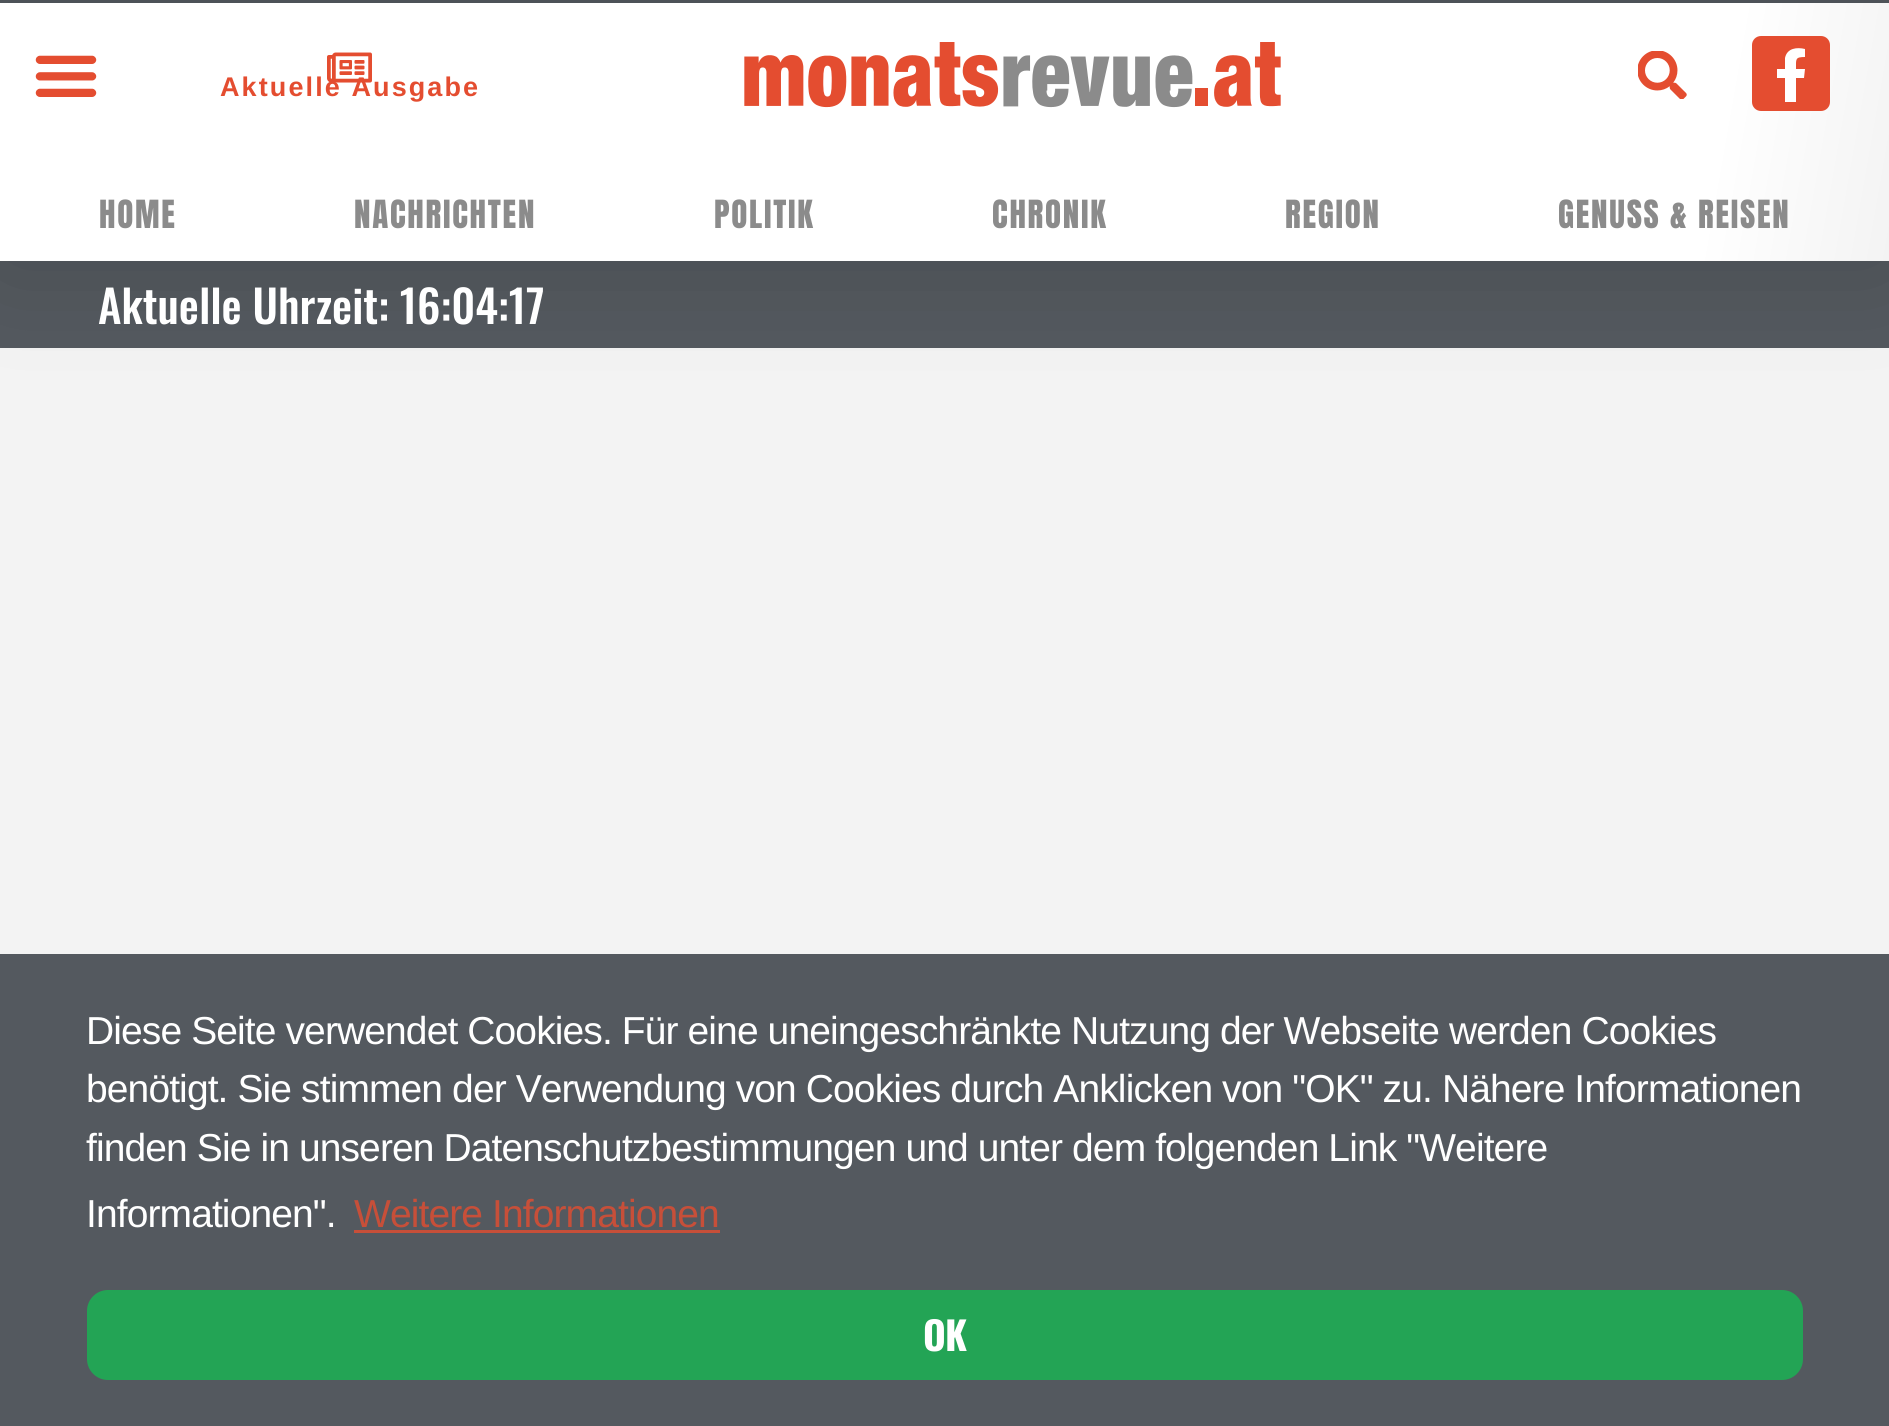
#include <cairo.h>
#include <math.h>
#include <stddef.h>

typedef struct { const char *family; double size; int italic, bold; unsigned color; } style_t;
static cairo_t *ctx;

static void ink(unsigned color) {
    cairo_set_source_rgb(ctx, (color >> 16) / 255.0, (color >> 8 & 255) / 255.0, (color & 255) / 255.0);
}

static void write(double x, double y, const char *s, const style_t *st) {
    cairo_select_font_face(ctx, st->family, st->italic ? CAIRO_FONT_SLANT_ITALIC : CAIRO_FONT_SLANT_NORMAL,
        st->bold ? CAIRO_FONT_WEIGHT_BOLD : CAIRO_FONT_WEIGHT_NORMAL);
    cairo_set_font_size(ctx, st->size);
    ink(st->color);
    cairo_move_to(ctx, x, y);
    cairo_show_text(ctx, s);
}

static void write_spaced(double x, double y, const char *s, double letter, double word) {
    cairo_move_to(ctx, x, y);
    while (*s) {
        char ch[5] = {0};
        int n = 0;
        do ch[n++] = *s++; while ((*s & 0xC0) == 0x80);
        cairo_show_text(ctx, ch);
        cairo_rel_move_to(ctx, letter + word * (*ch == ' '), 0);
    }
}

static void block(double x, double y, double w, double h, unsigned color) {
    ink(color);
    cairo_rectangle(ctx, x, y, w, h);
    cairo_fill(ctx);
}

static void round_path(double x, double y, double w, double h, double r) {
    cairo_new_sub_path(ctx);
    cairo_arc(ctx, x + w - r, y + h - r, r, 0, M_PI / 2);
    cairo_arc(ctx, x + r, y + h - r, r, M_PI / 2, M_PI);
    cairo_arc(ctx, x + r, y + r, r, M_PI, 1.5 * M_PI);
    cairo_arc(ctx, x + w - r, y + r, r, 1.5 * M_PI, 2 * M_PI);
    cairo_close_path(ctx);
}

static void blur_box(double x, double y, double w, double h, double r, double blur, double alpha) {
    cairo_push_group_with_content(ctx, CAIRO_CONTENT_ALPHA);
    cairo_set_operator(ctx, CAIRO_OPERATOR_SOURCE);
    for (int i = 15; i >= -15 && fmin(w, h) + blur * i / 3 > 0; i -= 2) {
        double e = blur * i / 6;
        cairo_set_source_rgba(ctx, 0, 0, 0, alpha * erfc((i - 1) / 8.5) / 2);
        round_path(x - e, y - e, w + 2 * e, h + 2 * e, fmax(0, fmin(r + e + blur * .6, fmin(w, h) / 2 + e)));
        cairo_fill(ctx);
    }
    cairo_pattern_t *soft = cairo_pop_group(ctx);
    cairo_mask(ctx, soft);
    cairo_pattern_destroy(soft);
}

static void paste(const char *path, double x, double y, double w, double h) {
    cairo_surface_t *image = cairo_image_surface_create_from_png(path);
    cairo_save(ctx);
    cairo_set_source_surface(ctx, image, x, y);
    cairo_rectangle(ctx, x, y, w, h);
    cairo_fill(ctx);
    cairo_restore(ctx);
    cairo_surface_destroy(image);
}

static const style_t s1 = {"Oswald Medium", 45, 0, 0, 0xffffff};

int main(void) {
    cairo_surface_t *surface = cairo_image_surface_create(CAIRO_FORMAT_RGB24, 1889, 1426);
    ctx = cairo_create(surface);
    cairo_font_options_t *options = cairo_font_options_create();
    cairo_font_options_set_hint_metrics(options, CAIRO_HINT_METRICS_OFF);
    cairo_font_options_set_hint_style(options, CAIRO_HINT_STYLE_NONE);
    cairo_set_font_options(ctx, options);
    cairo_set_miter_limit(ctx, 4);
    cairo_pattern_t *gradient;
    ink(0xf3f3f3);
    cairo_paint(ctx);
    block(0, 0, 1889, 3, 0x54595f);
    block(0, 261, 1889, 87, 0x54595f);
    ink(0x000000);
    blur_box(0, 3, 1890, 258, 0, 60, 0.16);
    gradient = cairo_pattern_create_linear(1884, 297, 6.4, -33);
    cairo_pattern_add_color_stop_rgba(gradient, 0, 0.953, 0.953, 0.953, 1);
    cairo_pattern_add_color_stop_rgba(gradient, 0.1, 1, 1, 1, 1);
    cairo_set_source(ctx, gradient);
    cairo_pattern_destroy(gradient);
    cairo_rectangle(ctx, 0, 3, 1889, 258);
    cairo_fill(ctx);
    paste("pic1.png", 35, 55, 62, 42);
    cairo_select_font_face(ctx, "Liberation Sans", CAIRO_FONT_SLANT_NORMAL, CAIRO_FONT_WEIGHT_BOLD);
    cairo_set_font_size(ctx, 27);
    ink(0xe44d30);
    write_spaced(220, 96, "Aktuelle Ausgabe", 2.1, 0);
    paste("pic2.png", 327, 52, 45, 31);
    paste("pic3.png", 744, 42, 537, 66);
    paste("pic4.png", 1638, 51, 49, 48);
    round_path(1752, 36, 78, 75, 9);
    cairo_fill(ctx);
    ink(0xffffff);
    cairo_new_path(ctx);
    cairo_move_to(ctx, 1804, 78);
    cairo_line_to(ctx, 1805, 69);
    cairo_line_to(ctx, 1796, 69);
    cairo_curve_to(ctx, 1796, 59, 1795, 57, 1805, 57);
    cairo_line_to(ctx, 1805, 49);
    cairo_curve_to(ctx, 1797, 47, 1787, 48, 1785, 58);
    cairo_line_to(ctx, 1785, 69);
    cairo_line_to(ctx, 1777, 69);
    cairo_line_to(ctx, 1777, 78);
    cairo_line_to(ctx, 1785, 78);
    cairo_line_to(ctx, 1785, 102);
    cairo_line_to(ctx, 1796, 102);
    cairo_line_to(ctx, 1796, 78);
    cairo_close_path(ctx);
    cairo_fill(ctx);
    cairo_select_font_face(ctx, "Anton", CAIRO_FONT_SLANT_NORMAL, CAIRO_FONT_WEIGHT_NORMAL);
    cairo_set_font_size(ctx, 33);
    ink(0x8b8b8b);
    write_spaced(99, 228, "HOME", 1.75, 0);
    write_spaced(354, 228, "NACHRICHTEN", 1.75, 0);
    write_spaced(714, 228, "POLITIK", 1.75, 0);
    write_spaced(992, 228, "CHRONIK", 1.75, 0);
    write_spaced(1285, 228, "REGION", 1.75, 0);
    write_spaced(1558, 228, "GENUSS & REISEN", 1.75, 0);
    write(98, 324, "Aktuelle Uhrzeit: 16:04:17", &s1);
    block(0, 954, 1889, 472, 0x54595f);
    cairo_select_font_face(ctx, "Liberation Sans", CAIRO_FONT_SLANT_NORMAL, CAIRO_FONT_WEIGHT_NORMAL);
    cairo_set_font_size(ctx, 39);
    ink(0xffffff);
    write_spaced(86, 1044, "Diese Seite verwendet Cookies. Für eine uneingeschränkte Nutzung der Webseite werden Cookies", -0.9, 0);
    write_spaced(86, 1102, "benötigt. Sie stimmen der Verwendung von Cookies durch Anklicken von \"OK\" zu. Nähere Informationen", -0.9, 0);
    write_spaced(86, 1161, "finden Sie in unseren Datenschutzbestimmungen und unter dem folgenden Link \"Weitere", -0.9, 0);
    write_spaced(86, 1227, "Informationen\".", -0.9, 0);
    ink(0xc74f39);
    write_spaced(354, 1227, "Weitere Informationen", -0.9, 0);
    block(354, 1230, 366, 3, 0xc74f39);
    ink(0x23a455);
    round_path(87, 1290, 1716, 90, 21);
    cairo_fill(ctx);
    cairo_select_font_face(ctx, "Oswald", CAIRO_FONT_SLANT_NORMAL, CAIRO_FONT_WEIGHT_BOLD);
    ink(0xffffff);
    write_spaced(923, 1351, "OK", -0.9, 0);
    cairo_surface_write_to_png(surface, "screenshot.png");
    cairo_font_options_destroy(options);
    cairo_destroy(ctx);
    cairo_surface_destroy(surface);
    return 0;
}
